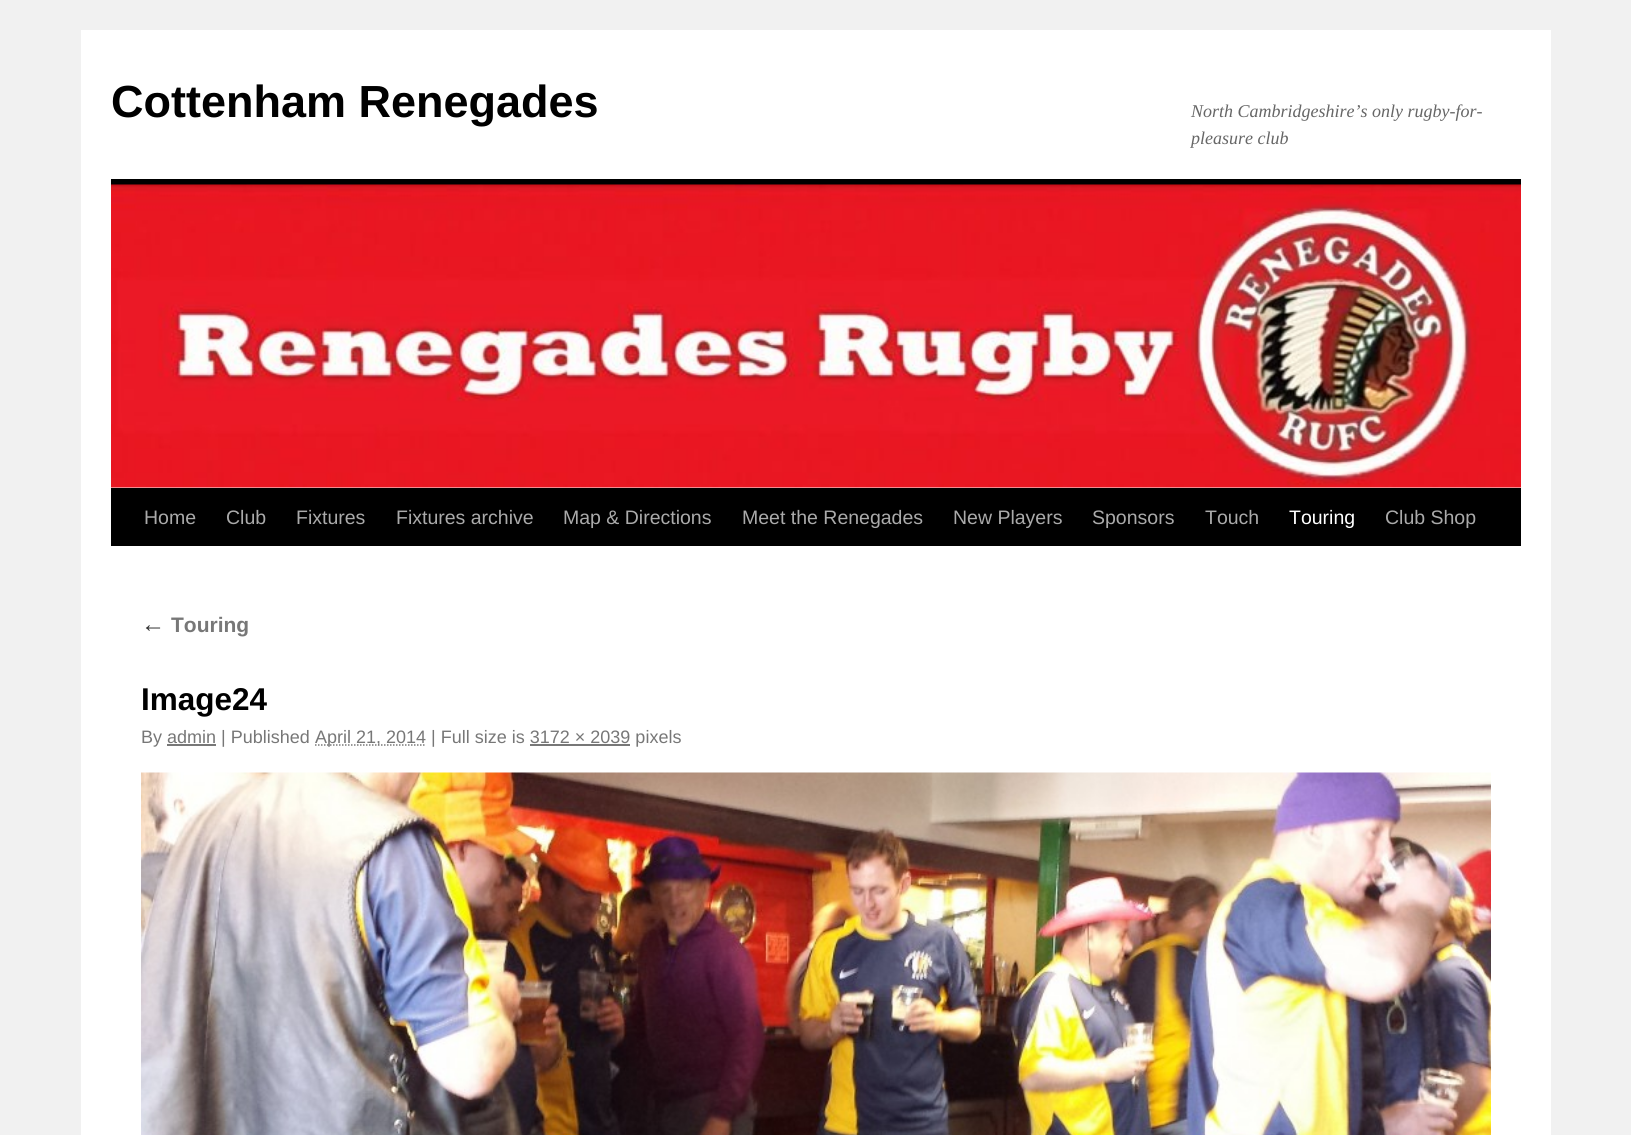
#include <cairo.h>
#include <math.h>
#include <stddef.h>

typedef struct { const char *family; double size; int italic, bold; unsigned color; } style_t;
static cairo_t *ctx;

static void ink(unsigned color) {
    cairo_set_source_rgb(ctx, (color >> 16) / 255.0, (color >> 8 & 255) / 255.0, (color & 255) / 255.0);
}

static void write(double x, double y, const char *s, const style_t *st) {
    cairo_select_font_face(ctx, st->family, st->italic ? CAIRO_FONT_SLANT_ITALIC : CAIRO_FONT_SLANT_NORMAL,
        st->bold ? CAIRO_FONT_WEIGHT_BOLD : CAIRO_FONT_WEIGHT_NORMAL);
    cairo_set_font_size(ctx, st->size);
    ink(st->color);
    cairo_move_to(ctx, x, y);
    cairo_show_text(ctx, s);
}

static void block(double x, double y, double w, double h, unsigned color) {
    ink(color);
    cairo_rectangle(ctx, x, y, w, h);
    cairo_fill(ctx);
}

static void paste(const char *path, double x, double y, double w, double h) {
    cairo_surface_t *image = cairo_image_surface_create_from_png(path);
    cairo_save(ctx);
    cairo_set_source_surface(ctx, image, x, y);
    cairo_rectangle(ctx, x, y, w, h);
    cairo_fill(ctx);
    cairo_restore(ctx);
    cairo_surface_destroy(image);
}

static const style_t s1 = {"Liberation Sans", 45, 0, 1, 0x000000};
static const style_t s2 = {"Liberation Serif", 18, 1, 0, 0x666666};
static const style_t s3 = {"Liberation Sans", 19.5, 0, 0, 0xaaaaaa};
static const style_t s4 = {"Liberation Sans", 19.5, 0, 0, 0xffffff};
static const style_t s5 = {"Liberation Serif", 24, 1, 0, 0x333333};
static const style_t s6 = {"Liberation Sans", 21, 0, 1, 0x777777};
static const style_t s7 = {"Liberation Sans", 31.5, 0, 1, 0x000000};
static const style_t s8 = {"Liberation Sans", 18, 0, 0, 0x777777};

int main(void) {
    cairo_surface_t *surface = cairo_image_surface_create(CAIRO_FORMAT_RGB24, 1631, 1135);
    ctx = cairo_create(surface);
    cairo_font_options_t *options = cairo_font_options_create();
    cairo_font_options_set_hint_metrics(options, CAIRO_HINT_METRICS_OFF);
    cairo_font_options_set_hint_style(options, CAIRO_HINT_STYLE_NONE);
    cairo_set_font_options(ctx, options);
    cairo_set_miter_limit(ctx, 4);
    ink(0xf1f1f1);
    cairo_paint(ctx);
    block(81, 30, 1470, 1105, 0xffffff);
    write(111, 117, "Cottenham Renegades", &s1);
    write(1191, 117, "North Cambridgeshire’s only rugby-for-", &s2);
    write(1191, 144, "pleasure club", &s2);
    block(111, 179, 1410, 6, 0x000000);
    block(111, 488, 1410, 58, 0x000000);
    paste("pic1.png", 111, 184, 1410, 304);
    write(144, 524, "Home", &s3);
    write(226, 524, "Club", &s3);
    write(296, 524, "Fixtures", &s3);
    write(396, 524, "Fixtures archive", &s3);
    write(563, 524, "Map & Directions", &s3);
    write(742, 524, "Meet the Renegades", &s3);
    write(953, 524, "New Players", &s3);
    write(1092, 524, "Sponsors", &s3);
    write(1205, 524, "Touch", &s3);
    write(1289, 524, "Touring", &s4);
    write(1385, 524, "Club Shop", &s3);
    write(141, 632, "←", &s5);
    write(171, 632, "Touring", &s6);
    write(141, 710, "Image24", &s7);
    write(141, 743, "By admin | Published", &s8);
    cairo_new_path(ctx);
    cairo_move_to(ctx, 315, 745);
    cairo_line_to(ctx, 426, 745);
    cairo_set_line_width(ctx, 1.5);
    cairo_set_dash(ctx, (double[]){1.5, 1.5}, 2, 0);
    cairo_stroke(ctx);
    write(315, 743, "April 21, 2014 | Full size is 3172 × 2039 pixels", &s8);
    block(167, 744, 49, 2, 0x777777);
    block(530, 744, 100, 2, 0x777777);
    paste("pic2.png", 141, 772, 1350, 363);
    cairo_surface_write_to_png(surface, "screenshot.png");
    cairo_font_options_destroy(options);
    cairo_destroy(ctx);
    cairo_surface_destroy(surface);
    return 0;
}
